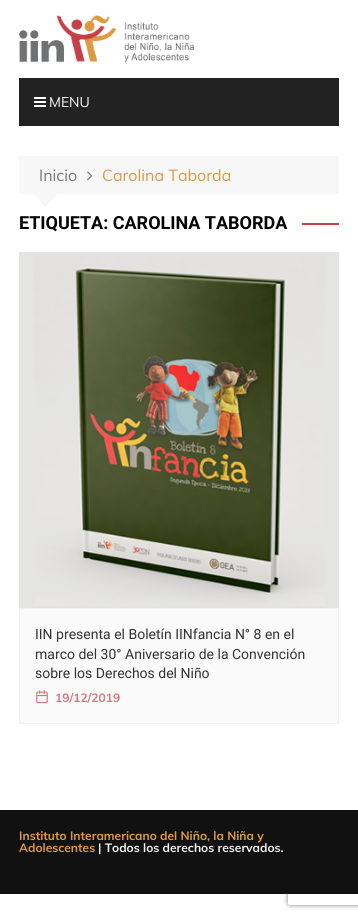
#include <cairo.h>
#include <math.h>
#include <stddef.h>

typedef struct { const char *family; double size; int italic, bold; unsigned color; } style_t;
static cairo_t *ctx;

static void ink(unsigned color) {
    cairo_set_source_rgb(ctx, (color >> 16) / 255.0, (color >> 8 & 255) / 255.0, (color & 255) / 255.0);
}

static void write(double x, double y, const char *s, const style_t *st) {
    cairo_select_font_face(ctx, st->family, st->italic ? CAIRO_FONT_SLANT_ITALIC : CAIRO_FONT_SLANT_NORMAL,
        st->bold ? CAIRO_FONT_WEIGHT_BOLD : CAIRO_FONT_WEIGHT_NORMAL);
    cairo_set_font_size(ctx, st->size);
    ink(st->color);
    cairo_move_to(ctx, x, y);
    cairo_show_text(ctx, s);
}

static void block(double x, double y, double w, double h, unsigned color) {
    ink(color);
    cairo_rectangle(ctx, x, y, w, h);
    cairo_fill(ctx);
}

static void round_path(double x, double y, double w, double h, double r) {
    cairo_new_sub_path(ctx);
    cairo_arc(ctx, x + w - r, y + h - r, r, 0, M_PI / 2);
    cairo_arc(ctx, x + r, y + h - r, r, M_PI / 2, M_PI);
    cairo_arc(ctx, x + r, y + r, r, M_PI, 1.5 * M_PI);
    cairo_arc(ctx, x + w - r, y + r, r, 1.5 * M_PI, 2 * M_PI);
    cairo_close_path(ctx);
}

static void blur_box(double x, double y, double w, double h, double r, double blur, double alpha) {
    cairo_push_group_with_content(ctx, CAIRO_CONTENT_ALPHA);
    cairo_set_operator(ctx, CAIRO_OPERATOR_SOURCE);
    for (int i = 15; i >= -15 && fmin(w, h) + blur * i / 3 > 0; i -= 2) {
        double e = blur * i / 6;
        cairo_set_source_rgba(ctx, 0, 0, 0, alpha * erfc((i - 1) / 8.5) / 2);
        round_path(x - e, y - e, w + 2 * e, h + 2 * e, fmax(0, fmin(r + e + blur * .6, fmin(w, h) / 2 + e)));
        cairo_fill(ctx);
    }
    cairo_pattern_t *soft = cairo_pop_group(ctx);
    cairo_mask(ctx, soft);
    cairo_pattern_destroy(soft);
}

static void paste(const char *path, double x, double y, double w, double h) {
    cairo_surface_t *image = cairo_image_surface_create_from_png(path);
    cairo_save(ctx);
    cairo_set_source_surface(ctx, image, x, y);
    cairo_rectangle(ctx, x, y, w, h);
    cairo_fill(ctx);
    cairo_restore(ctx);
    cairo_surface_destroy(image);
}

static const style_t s1 = {"Muli", 14, 0, 0, 0xffffff};
static const style_t s2 = {"Muli", 16, 0, 0, 0x777777};
static const style_t s3 = {"Muli", 16, 0, 0, 0xde9a41};
static const style_t s4 = {"Roboto", 18, 0, 1, 0x010101};
static const style_t s5 = {"Roboto", 14, 0, 0, 0x333333};
static const style_t s6 = {"Muli", 12, 0, 1, 0xd6787d};
static const style_t s7 = {"Muli", 12, 0, 1, 0xde9a41};
static const style_t s8 = {"Muli", 12, 0, 1, 0xf1f1f1};

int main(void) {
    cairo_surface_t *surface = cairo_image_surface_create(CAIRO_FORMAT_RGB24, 358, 919);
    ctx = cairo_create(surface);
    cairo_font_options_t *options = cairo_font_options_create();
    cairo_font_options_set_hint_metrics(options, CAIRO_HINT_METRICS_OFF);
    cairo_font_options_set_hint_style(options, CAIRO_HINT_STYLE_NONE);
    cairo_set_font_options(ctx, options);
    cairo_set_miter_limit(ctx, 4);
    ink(0xffffff);
    cairo_paint(ctx);
    paste("pic1.png", 19, 15, 175, 48);
    block(19, 78, 320, 48, 0x222222);
    paste("pic2.png", 34, 97, 12, 10);
    write(49, 107, "MENU", &s1);
    block(19, 156, 320, 38, 0xf7f7f7);
    write(39, 181, "Inicio", &s2);
    paste("pic3.png", 87, 171, 6, 10);
    write(102, 181, "Carolina Taborda", &s3);
    ink(0xf7f7f7);
    cairo_new_path(ctx);
    cairo_move_to(ctx, 33.5, 194);
    cairo_line_to(ctx, 57.5, 194);
    cairo_line_to(ctx, 45.5, 207);
    cairo_close_path(ctx);
    cairo_fill(ctx);
    write(19, 229, "ETIQUETA: CAROLINA TABORDA", &s4);
    block(302, 223, 37, 2, 0xc73f47);
    paste("pic4.png", 19, 252, 320, 356);
    ink(0xfafafa);
    cairo_rectangle(ctx, 19.5, 608.5, 319, 115);
    cairo_fill_preserve(ctx);
    ink(0xf3f3f3);
    cairo_set_line_width(ctx, 1);
    cairo_stroke(ctx);
    write(35, 639, "IIN presenta el Boletín IINfancia N° 8 en el", &s5);
    write(35, 659, "marco del 30° Aniversario de la Convención", &s5);
    write(35, 678, "sobre los Derechos del Niño", &s5);
    paste("pic5.png", 36, 690, 12, 14);
    write(55, 702, "19/12/2019", &s6);
    cairo_save(ctx);
    cairo_set_fill_rule(ctx, CAIRO_FILL_RULE_EVEN_ODD);
    cairo_new_path(ctx);
    cairo_move_to(ctx, 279, 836);
    cairo_line_to(ctx, 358, 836);
    cairo_line_to(ctx, 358, 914);
    cairo_line_to(ctx, 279, 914);
    cairo_close_path(ctx);
    cairo_move_to(ctx, 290, 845);
    cairo_line_to(ctx, 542, 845);
    cairo_curve_to(ctx, 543, 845, 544, 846, 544, 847);
    cairo_line_to(ctx, 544, 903);
    cairo_curve_to(ctx, 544, 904, 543, 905, 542, 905);
    cairo_line_to(ctx, 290, 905);
    cairo_curve_to(ctx, 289, 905, 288, 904, 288, 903);
    cairo_line_to(ctx, 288, 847);
    cairo_curve_to(ctx, 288, 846, 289, 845, 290, 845);
    cairo_close_path(ctx);
    cairo_clip(ctx);
    ink(0x808080);
    blur_box(288, 845, 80, 60, 2, 2.5, 1);
    cairo_restore(ctx);
    block(0, 810, 358, 84, 0x111111);
    write(19, 840, "Instituto Interamericano del Niño, la Niña y", &s7);
    write(19, 852, "Adolescentes", &s7);
    write(98, 852, "| Todos los derechos reservados.", &s8);
    cairo_surface_write_to_png(surface, "screenshot.png");
    cairo_font_options_destroy(options);
    cairo_destroy(ctx);
    cairo_surface_destroy(surface);
    return 0;
}
